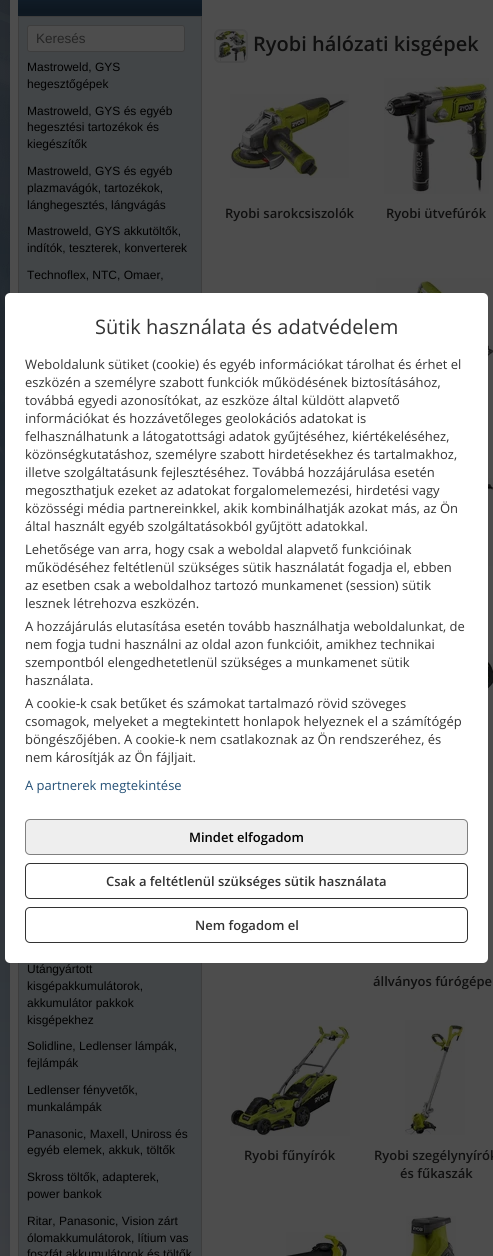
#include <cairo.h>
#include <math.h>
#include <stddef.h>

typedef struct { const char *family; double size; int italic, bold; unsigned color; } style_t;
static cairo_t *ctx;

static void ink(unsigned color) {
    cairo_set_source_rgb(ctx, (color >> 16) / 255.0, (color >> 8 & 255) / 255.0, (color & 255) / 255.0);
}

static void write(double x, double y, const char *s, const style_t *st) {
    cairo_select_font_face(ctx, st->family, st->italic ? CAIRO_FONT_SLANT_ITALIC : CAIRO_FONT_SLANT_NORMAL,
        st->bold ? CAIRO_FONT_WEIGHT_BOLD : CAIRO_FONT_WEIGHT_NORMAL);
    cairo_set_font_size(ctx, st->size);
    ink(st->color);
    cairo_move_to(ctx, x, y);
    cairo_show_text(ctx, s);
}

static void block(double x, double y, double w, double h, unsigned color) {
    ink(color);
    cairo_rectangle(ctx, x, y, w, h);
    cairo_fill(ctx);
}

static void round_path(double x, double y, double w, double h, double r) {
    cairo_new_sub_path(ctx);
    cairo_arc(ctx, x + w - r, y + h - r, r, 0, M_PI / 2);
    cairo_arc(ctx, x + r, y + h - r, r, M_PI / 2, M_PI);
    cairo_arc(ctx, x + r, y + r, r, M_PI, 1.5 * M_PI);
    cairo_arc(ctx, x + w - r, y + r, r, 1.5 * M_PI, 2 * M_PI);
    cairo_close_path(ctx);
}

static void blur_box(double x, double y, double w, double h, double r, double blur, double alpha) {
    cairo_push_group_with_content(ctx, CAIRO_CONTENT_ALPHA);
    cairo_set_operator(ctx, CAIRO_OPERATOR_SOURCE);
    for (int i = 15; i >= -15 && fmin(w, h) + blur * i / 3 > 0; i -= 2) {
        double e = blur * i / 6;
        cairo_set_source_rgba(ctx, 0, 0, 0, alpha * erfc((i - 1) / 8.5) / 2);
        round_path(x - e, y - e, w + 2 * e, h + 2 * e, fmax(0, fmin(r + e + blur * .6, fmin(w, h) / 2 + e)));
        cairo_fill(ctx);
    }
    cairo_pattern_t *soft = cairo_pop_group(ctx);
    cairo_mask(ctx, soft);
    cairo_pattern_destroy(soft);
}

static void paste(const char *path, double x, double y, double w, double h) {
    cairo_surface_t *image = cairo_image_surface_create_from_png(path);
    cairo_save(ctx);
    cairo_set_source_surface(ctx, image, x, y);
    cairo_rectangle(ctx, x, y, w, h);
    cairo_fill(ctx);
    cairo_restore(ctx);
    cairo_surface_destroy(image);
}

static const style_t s1 = {"Liberation Sans", 13.5, 0, 0, 0x232323};
static const style_t s2 = {"Liberation Sans", 12, 0, 0, 0x000000};
static const style_t s3 = {"Open Sans SemiBold", 20, 0, 0, 0x0f0f0f};
static const style_t s4 = {"Open Sans SemiBold", 13, 0, 0, 0x0f0f0f};
static const style_t s5 = {"Open Sans", 20, 0, 0, 0x333333};
static const style_t s6 = {"Open Sans", 13, 0, 0, 0x333333};
static const style_t s7 = {"Open Sans", 13, 0, 0, 0x245076};
static const style_t s8 = {"Open Sans SemiBold", 13, 0, 0, 0x000000};
static const style_t s9 = {"Open Sans SemiBold", 13, 0, 0, 0x333333};

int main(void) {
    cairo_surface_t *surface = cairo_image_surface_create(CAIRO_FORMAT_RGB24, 493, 1256);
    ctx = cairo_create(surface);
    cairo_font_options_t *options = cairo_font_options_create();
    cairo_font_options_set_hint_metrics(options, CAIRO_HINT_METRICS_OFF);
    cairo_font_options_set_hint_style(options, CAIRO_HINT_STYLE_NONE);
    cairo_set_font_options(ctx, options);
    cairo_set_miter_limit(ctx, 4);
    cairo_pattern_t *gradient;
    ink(0xffffff);
    cairo_paint(ctx);
    gradient = cairo_pattern_create_linear(246, 0, 247, 1256);
    cairo_pattern_add_color_stop_rgba(gradient, 0, 0.086, 0.114, 0.145, 1);
    cairo_pattern_add_color_stop_rgba(gradient, 0.4, 0.137, 0.169, 0.2, 1);
    cairo_pattern_add_color_stop_rgba(gradient, 0.8, 0.2, 0.22, 0.239, 1);
    cairo_pattern_add_color_stop_rgba(gradient, 1, 0.235, 0.243, 0.259, 1);
    cairo_set_source(ctx, gradient);
    cairo_pattern_destroy(gradient);
    cairo_rectangle(ctx, 0, 0, 10, 1256);
    cairo_fill(ctx);
    paste("pic1.png", 0, 0, 10, 462);
    ink(0x000000);
    blur_box(10, -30, 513, 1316, 0, 10, 0.1);
    block(10, 0, 483, 1256, 0x4d4d4d);
    gradient = cairo_pattern_create_linear(110, -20, 110, 16);
    cairo_pattern_add_color_stop_rgba(gradient, 0, 0.055, 0.09, 0.125, 1);
    cairo_pattern_add_color_stop_rgba(gradient, 0.25, 0.071, 0.122, 0.173, 1);
    cairo_pattern_add_color_stop_rgba(gradient, 0.85, 0.051, 0.09, 0.125, 1);
    cairo_pattern_add_color_stop_rgba(gradient, 1, 0.055, 0.094, 0.129, 1);
    cairo_set_source(ctx, gradient);
    cairo_pattern_destroy(gradient);
    cairo_rectangle(ctx, 18, 0, 184, 16);
    cairo_fill(ctx);
    ink(0x424547);
    cairo_rectangle(ctx, 18.5, 16.5, 183, 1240);
    cairo_fill_preserve(ctx);
    ink(0x3d3d3d);
    cairo_set_line_width(ctx, 1);
    cairo_stroke(ctx);
    ink(0x4d4d4d);
    round_path(27.5, 25.5, 157, 26, 2.5);
    cairo_fill_preserve(ctx);
    ink(0x3d3d3d);
    cairo_stroke(ctx);
    write(36, 43, "Keresés", &s1);
    write(27, 71, "Mastroweld, GYS", &s2);
    write(27, 88, "hegesztőgépek", &s2);
    write(27, 115, "Mastroweld, GYS és egyéb", &s2);
    write(27, 131, "hegesztési tartozékok és", &s2);
    write(27, 148, "kiegészítők", &s2);
    write(27, 175, "Mastroweld, GYS és egyéb", &s2);
    write(27, 192, "plazmavágók, tartozékok,", &s2);
    write(27, 209, "lánghegesztés, lángvágás", &s2);
    write(27, 235, "Mastroweld, GYS akkutöltők,", &s2);
    write(27, 252, "indítók, teszterek, konverterek", &s2);
    write(27, 279, "Technoflex, NTC, Omaer,", &s2);
    write(27, 973, "Utángyártott", &s2);
    write(27, 990, "kisgépakkumulátorok,", &s2);
    write(27, 1007, "akkumulátor pakkok", &s2);
    write(27, 1024, "kisgépekhez", &s2);
    write(27, 1050, "Solidline, Ledlenser lámpák,", &s2);
    write(27, 1067, "fejlámpák", &s2);
    write(27, 1094, "Ledlenser fényvetők,", &s2);
    write(27, 1111, "munkalámpák", &s2);
    write(27, 1138, "Panasonic, Maxell, Uniross és", &s2);
    write(27, 1154, "egyéb elemek, akkuk, töltők", &s2);
    write(27, 1181, "Skross töltők, adapterek,", &s2);
    write(27, 1198, "power bankok", &s2);
    write(27, 1225, "Ritar, Panasonic, Vision zárt", &s2);
    write(27, 1242, "ólomakkumulátorok, lítium vas", &s2);
    write(27, 1258, "foszfát akkumulátorok és töltők", &s2);
    paste("pic2.png", 216, 31, 30, 30);
    round_path(215, 30, 32, 32, 5);
    ink(0x474747);
    cairo_set_line_width(ctx, 2);
    cairo_stroke(ctx);
    write(253, 51, "Ryobi hálózati kisgépek", &s3);
    paste("pic3.png", 230, 94, 119, 84);
    write(225, 218, "Ryobi sarokcsiszolók", &s4);
    paste("pic4.png", 384, 78, 105, 116);
    write(386, 218, "Ryobi ütvefúrók", &s4);
    paste("pic5.png", 376, 278, 117, 102);
    paste("pic6.png", 488, 478, 5, 88);
    paste("pic7.png", 488, 654, 5, 119);
    write(373, 986, "állványos fúrógépe", &s4);
    paste("pic8.png", 230, 1020, 120, 116);
    write(244, 1160, "Ryobi fűnyírók", &s4);
    paste("pic9.png", 405, 1020, 60, 115);
    write(374, 1160, "Ryobi szegélynyírók", &s4);
    write(400, 1178, "és fűkaszák", &s4);
    paste("pic10.png", 286, 1232, 64, 24);
    paste("pic11.png", 406, 1216, 50, 40);
    ink(0xffffff);
    round_path(5, 293, 483, 670, 5);
    cairo_fill(ctx);
    write(95, 334, "Sütik használata és adatvédelem", &s5);
    write(25, 369, "Weboldalunk sütiket (cookie) és egyéb információkat tárolhat és érhet el", &s6);
    write(25, 387, "eszközén a személyre szabott funkciók működésének biztosításához,", &s6);
    write(25, 405, "továbbá egyedi azonosítókat, az eszköze által küldött alapvető", &s6);
    write(25, 423, "információkat és hozzávetőleges geolokációs adatokat is", &s6);
    write(25, 441, "felhasználhatunk a látogatottsági adatok gyűjtéséhez, kiértékeléséhez,", &s6);
    write(25, 459, "közönségkutatáshoz, személyre szabott hirdetésekhez és tartalmakhoz,", &s6);
    write(25, 477, "illetve szolgáltatásunk fejlesztéséhez. Továbbá hozzájárulása esetén", &s6);
    write(25, 495, "megoszthatjuk ezeket az adatokat forgalomelemezési, hirdetési vagy", &s6);
    write(25, 513, "közösségi média partnereinkkel, akik kombinálhatják azokat más, az Ön", &s6);
    write(25, 531, "által használt egyéb szolgáltatásokból gyűjtött adatokkal.", &s6);
    write(25, 554, "Lehetősége van arra, hogy csak a weboldal alapvető funkcióinak", &s6);
    write(25, 572, "működéséhez feltétlenül szükséges sütik használatát fogadja el, ebben", &s6);
    write(25, 590, "az esetben csak a weboldalhoz tartozó munkamenet (session) sütik", &s6);
    write(25, 608, "lesznek létrehozva eszközén.", &s6);
    write(25, 631, "A hozzájárulás elutasítása esetén tovább használhatja weboldalunkat, de", &s6);
    write(25, 649, "nem fogja tudni használni az oldal azon funkcióit, amikhez technikai", &s6);
    write(25, 667, "szempontból elengedhetetlenül szükséges a munkamenet sütik", &s6);
    write(25, 685, "használata.", &s6);
    write(25, 708, "A cookie-k csak betűket és számokat tartalmazó rövid szöveges", &s6);
    write(25, 726, "csomagok, melyeket a megtekintett honlapok helyeznek el a számítógép", &s6);
    write(25, 744, "böngészőjében. A cookie-k nem csatlakoznak az Ön rendszeréhez, és", &s6);
    write(25, 762, "nem károsítják az Ön fájljait.", &s6);
    write(25, 790, "A partnerek megtekintése", &s7);
    ink(0xeeeeee);
    round_path(25.5, 819.5, 442, 35, 4.5);
    cairo_fill_preserve(ctx);
    ink(0x808080);
    cairo_set_line_width(ctx, 1);
    cairo_stroke(ctx);
    write(189, 842, "Mindet elfogadom", &s8);
    round_path(25.5, 863.5, 442, 35, 4.5);
    ink(0x333333);
    cairo_stroke(ctx);
    write(106, 886, "Csak a feltétlenül szükséges sütik használata", &s9);
    round_path(25.5, 907.5, 442, 35, 4.5);
    cairo_stroke(ctx);
    write(195, 930, "Nem fogadom el", &s9);
    cairo_surface_write_to_png(surface, "screenshot.png");
    cairo_font_options_destroy(options);
    cairo_destroy(ctx);
    cairo_surface_destroy(surface);
    return 0;
}
